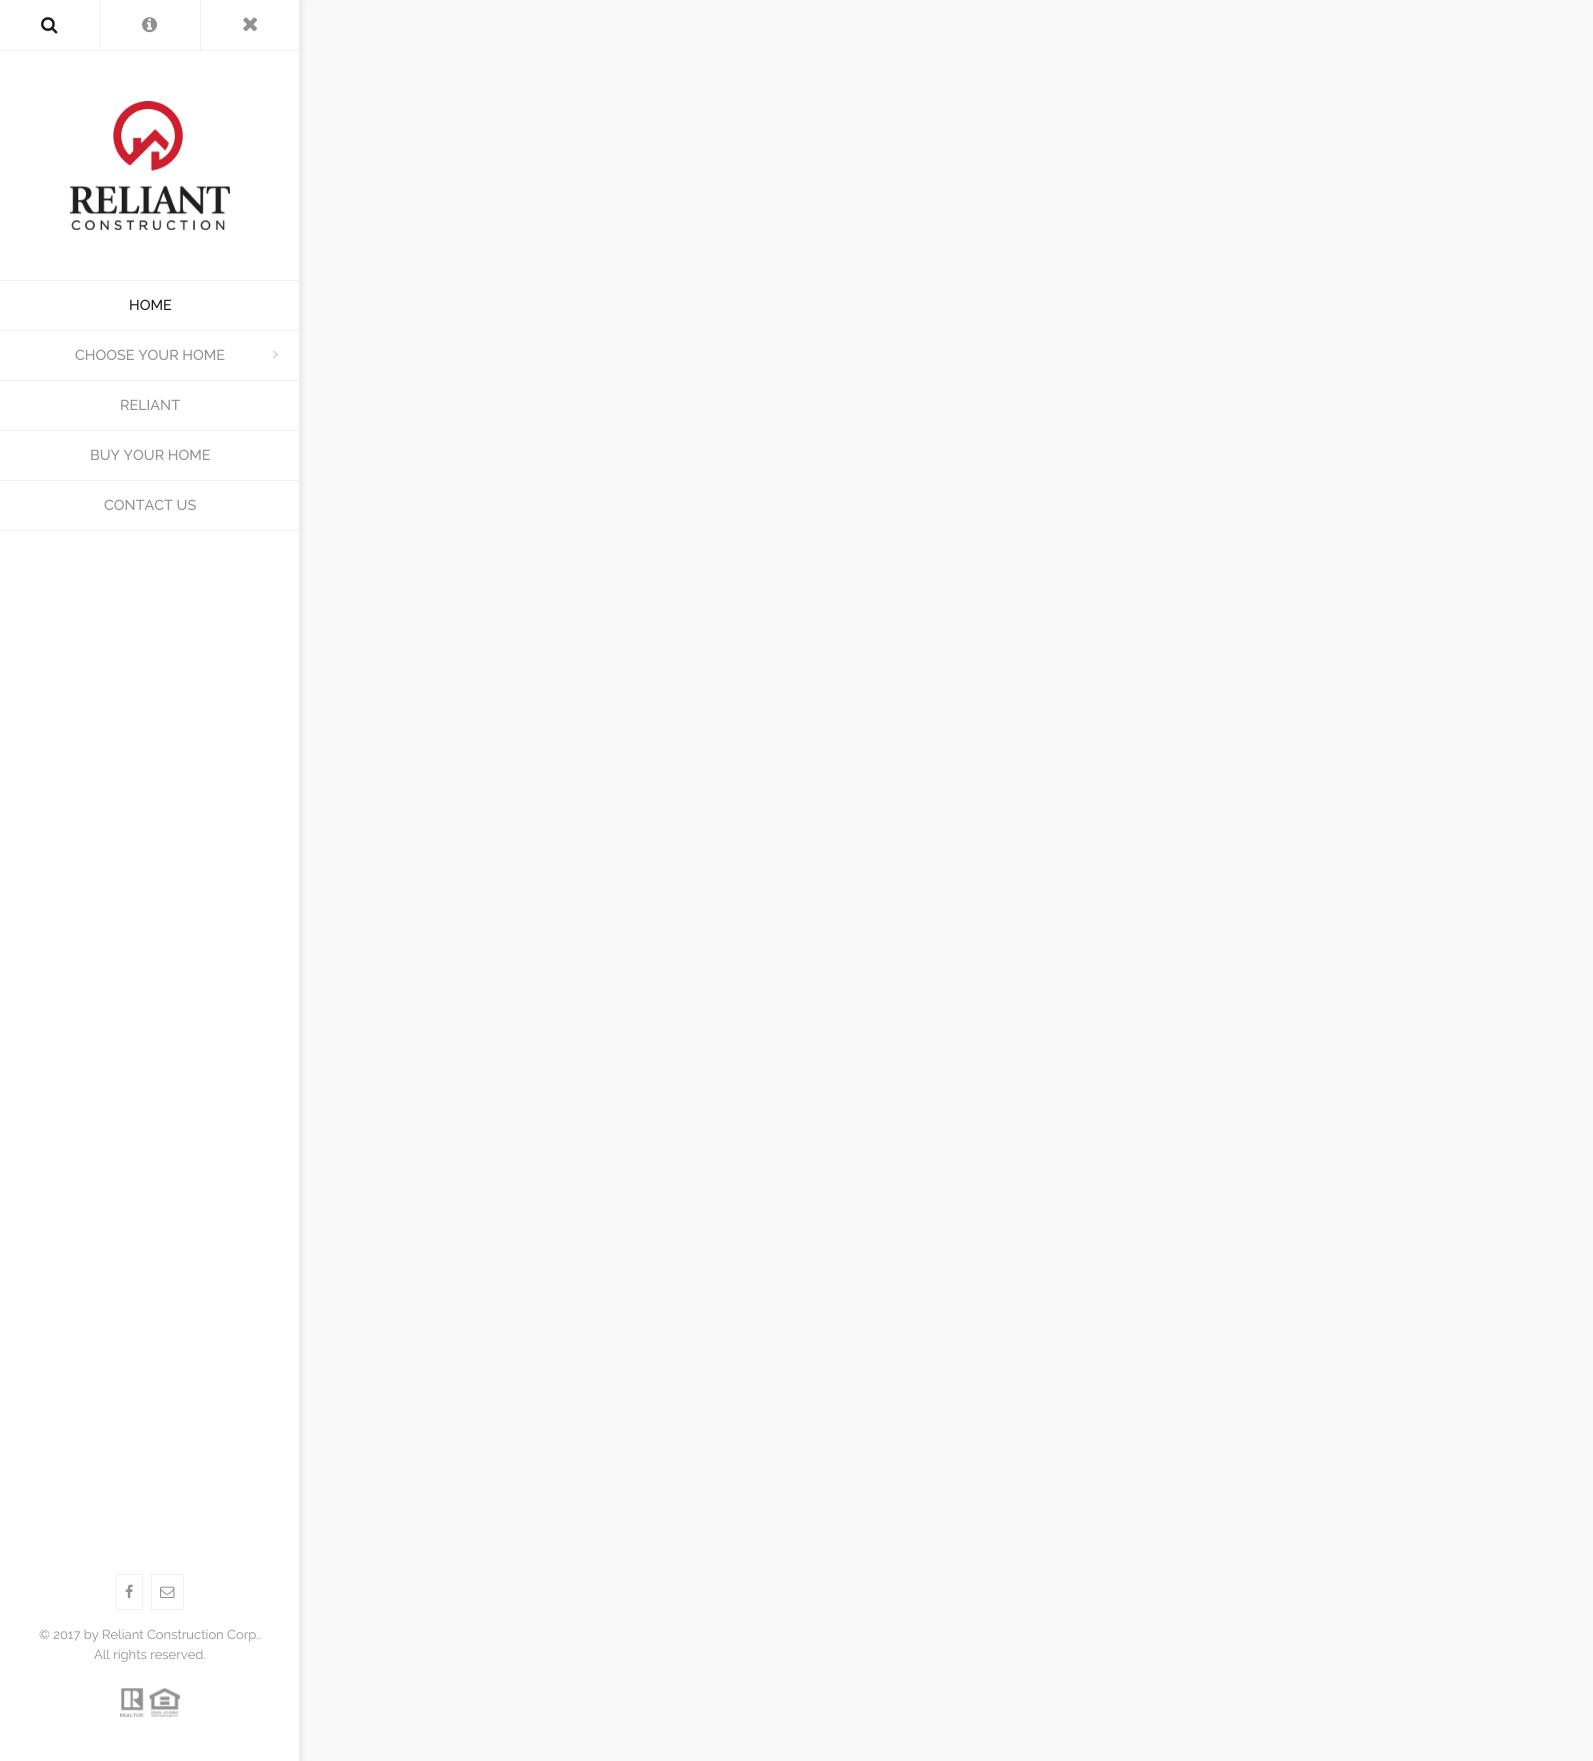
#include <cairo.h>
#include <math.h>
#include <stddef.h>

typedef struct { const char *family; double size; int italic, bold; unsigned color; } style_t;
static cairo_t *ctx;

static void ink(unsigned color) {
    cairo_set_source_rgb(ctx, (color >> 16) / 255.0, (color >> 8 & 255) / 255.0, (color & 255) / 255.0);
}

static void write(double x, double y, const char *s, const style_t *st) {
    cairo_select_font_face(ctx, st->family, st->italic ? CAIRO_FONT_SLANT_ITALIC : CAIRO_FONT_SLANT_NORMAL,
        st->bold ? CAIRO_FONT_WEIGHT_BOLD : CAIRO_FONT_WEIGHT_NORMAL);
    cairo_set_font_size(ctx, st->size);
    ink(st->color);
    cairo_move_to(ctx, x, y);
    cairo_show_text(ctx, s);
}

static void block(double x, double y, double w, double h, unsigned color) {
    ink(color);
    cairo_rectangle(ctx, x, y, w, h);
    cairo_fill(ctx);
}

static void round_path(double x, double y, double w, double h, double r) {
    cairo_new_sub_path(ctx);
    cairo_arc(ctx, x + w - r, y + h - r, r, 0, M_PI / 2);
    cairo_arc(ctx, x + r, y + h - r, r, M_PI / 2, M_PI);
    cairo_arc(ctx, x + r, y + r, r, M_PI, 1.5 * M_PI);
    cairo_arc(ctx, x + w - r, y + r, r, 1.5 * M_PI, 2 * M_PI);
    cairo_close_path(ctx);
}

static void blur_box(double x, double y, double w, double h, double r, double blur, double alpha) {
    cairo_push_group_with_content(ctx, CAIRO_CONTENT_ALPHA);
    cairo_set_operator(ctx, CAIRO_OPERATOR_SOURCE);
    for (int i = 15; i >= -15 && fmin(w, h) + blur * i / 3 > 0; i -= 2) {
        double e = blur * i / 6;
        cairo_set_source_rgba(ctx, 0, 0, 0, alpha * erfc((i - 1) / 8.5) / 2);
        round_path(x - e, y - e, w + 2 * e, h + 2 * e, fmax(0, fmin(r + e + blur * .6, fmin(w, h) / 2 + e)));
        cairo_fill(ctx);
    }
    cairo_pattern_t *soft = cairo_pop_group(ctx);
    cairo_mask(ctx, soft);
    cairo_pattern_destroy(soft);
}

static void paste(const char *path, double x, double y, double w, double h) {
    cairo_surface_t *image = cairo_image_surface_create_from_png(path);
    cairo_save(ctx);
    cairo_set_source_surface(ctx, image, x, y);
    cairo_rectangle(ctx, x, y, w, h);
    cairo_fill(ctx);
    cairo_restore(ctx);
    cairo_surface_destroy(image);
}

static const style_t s1 = {"Raleway Medium", 14.4, 0, 0, 0x1a1a1a};
static const style_t s2 = {"Raleway Medium", 14.4, 0, 0, 0x919191};
static const style_t s3 = {"Raleway", 13, 0, 0, 0x919191};

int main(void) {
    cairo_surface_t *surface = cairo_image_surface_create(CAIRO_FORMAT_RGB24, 1593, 1761);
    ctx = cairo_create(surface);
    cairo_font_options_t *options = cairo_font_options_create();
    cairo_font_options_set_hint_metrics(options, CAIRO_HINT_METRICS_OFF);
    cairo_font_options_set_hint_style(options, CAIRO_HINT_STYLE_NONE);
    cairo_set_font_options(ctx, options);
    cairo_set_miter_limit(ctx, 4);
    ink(0xf8f8f8);
    cairo_paint(ctx);
    ink(0x000000);
    blur_box(-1, -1, 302, 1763, 0, 3, 0.1);
    block(0, 0, 299, 1761, 0xffffff);
    block(299, 0, 1, 1761, 0xf0f0f0);
    block(0, 50, 300, 1, 0xf0f0f0);
    block(99, 0, 1, 50, 0xf0f0f0);
    paste("pic1.png", 41, 17, 17, 17);
    block(200, 0, 1, 50, 0xf0f0f0);
    paste("pic2.png", 142, 17, 16, 16);
    paste("pic3.png", 243, 17, 14, 15);
    paste("pic4.png", 70, 101, 160, 129);
    block(0, 280, 300, 1, 0xf0f0f0);
    block(0, 330, 300, 1, 0xf0f0f0);
    write(129, 310, "HOME", &s1);
    block(0, 380, 300, 1, 0xf0f0f0);
    write(75, 360, "CHOOSE YOUR HOME", &s2);
    paste("pic5.png", 273, 350, 5, 9);
    block(0, 430, 300, 1, 0xf0f0f0);
    write(120, 410, "RELIANT", &s2);
    block(0, 480, 300, 1, 0xf0f0f0);
    write(90, 460, "BUY YOUR HOME", &s2);
    block(0, 530, 300, 1, 0xf0f0f0);
    write(104, 510, "CONTACT US", &s2);
    cairo_rectangle(ctx, 116.5, 1574.5, 26, 35);
    ink(0xf0f0f0);
    cairo_set_line_width(ctx, 1);
    cairo_stroke(ctx);
    paste("pic6.png", 125, 1584, 8, 14);
    cairo_rectangle(ctx, 151.5, 1574.5, 32, 35);
    cairo_stroke(ctx);
    paste("pic7.png", 160, 1586, 15, 12);
    write(39, 1639, "© 2017 by Reliant Construction Corp..", &s3);
    write(94, 1659, "All rights reserved.", &s3);
    paste("pic8.png", 120, 1687, 60, 30);
    cairo_surface_write_to_png(surface, "screenshot.png");
    cairo_font_options_destroy(options);
    cairo_destroy(ctx);
    cairo_surface_destroy(surface);
    return 0;
}
